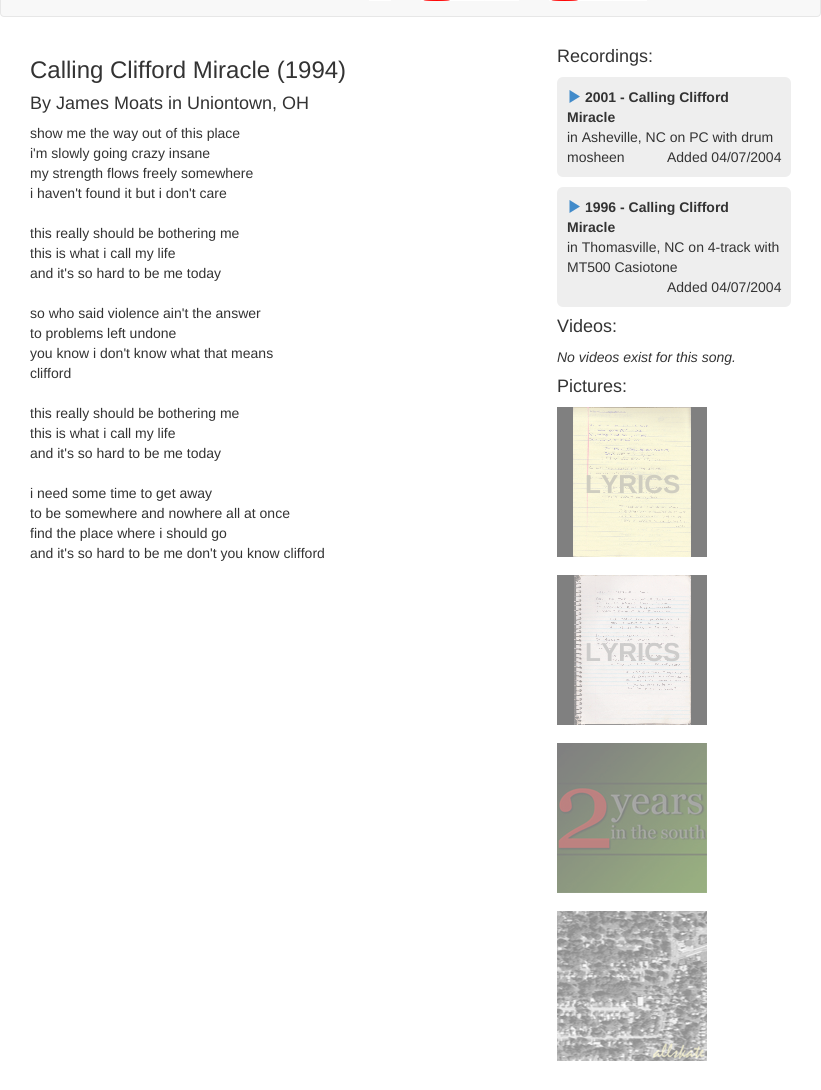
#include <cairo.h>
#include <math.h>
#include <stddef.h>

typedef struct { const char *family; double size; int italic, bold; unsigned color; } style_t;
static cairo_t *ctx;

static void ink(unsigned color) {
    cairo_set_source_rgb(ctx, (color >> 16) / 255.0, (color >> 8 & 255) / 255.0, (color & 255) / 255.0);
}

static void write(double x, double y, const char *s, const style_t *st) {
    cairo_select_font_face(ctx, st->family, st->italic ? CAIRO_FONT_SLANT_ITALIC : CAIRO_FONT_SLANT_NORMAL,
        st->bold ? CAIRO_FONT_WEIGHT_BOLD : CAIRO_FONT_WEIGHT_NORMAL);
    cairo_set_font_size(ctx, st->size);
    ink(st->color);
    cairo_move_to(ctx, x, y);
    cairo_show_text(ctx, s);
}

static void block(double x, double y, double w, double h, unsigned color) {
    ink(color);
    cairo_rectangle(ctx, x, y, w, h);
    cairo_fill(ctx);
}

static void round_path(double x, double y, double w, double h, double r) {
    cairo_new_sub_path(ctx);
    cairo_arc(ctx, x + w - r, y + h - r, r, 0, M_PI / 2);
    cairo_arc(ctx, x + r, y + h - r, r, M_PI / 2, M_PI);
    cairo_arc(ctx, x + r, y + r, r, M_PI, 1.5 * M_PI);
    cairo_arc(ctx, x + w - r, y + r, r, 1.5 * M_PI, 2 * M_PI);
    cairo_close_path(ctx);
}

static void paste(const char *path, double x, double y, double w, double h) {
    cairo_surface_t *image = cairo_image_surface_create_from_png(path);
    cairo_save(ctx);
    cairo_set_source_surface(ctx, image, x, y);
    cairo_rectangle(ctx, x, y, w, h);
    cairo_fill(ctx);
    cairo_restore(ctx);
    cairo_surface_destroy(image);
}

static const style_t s1 = {"Liberation Sans", 24, 0, 0, 0x333333};
static const style_t s2 = {"Liberation Sans", 18, 0, 0, 0x333333};
static const style_t s3 = {"Liberation Sans", 14, 0, 0, 0x333333};
static const style_t s4 = {"Liberation Sans", 14, 0, 1, 0x333333};
static const style_t s5 = {"Liberation Sans", 14, 1, 0, 0x333333};
static const style_t s6 = {"Liberation Sans", 26, 0, 1, 0xcfcdc0};
static const style_t s7 = {"Liberation Sans", 26, 0, 1, 0xcdcccb};

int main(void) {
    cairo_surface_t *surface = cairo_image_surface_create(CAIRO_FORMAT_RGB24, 821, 1090);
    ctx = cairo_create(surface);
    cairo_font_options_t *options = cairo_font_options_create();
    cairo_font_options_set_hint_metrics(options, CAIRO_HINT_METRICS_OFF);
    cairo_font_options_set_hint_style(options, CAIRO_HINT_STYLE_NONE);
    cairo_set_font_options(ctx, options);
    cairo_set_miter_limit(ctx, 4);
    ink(0xffffff);
    cairo_paint(ctx);
    ink(0xf8f8f8);
    round_path(0.5, -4.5, 820, 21, 3.5);
    cairo_fill_preserve(ctx);
    ink(0xe7e7e7);
    cairo_set_line_width(ctx, 1);
    cairo_stroke(ctx);
    block(369, 0, 22, 1, 0xffffff);
    paste("pic1.png", 421, 0, 98, 1);
    paste("pic1.png", 549, 0, 98, 1);
    write(30, 78, "Calling Clifford Miracle (1994)", &s1);
    write(30, 109, "By James Moats in Uniontown, OH", &s2);
    write(30, 138, "show me the way out of this place", &s3);
    write(30, 158, "i'm slowly going crazy insane", &s3);
    write(30, 178, "my strength flows freely somewhere", &s3);
    write(30, 198, "i haven't found it but i don't care", &s3);
    write(30, 238, "this really should be bothering me", &s3);
    write(30, 258, "this is what i call my life", &s3);
    write(30, 278, "and it's so hard to be me today", &s3);
    write(30, 318, "so who said violence ain't the answer", &s3);
    write(30, 338, "to problems left undone", &s3);
    write(30, 358, "you know i don't know what that means", &s3);
    write(30, 378, "clifford", &s3);
    write(30, 418, "this really should be bothering me", &s3);
    write(30, 438, "this is what i call my life", &s3);
    write(30, 458, "and it's so hard to be me today", &s3);
    write(30, 498, "i need some time to get away", &s3);
    write(30, 518, "to be somewhere and nowhere all at once", &s3);
    write(30, 538, "find the place where i should go", &s3);
    write(30, 558, "and it's so hard to be me don't you know clifford", &s3);
    write(557, 62, "Recordings:", &s2);
    ink(0xeeeeee);
    round_path(557, 77, 234, 100, 6);
    cairo_fill(ctx);
    ink(0x428bca);
    cairo_new_path(ctx);
    cairo_move_to(ctx, 569.5, 103);
    cairo_line_to(ctx, 580, 96.5);
    cairo_line_to(ctx, 569.5, 90);
    cairo_close_path(ctx);
    cairo_fill(ctx);
    write(585, 102, "2001 - Calling Clifford", &s4);
    write(567, 122, "Miracle", &s4);
    write(567, 142, "in Asheville, NC on PC with drum", &s3);
    write(567, 162, "mosheen", &s3);
    write(667, 162, "Added 04/07/2004", &s3);
    ink(0xeeeeee);
    round_path(557, 187, 234, 120, 6);
    cairo_fill(ctx);
    ink(0x428bca);
    cairo_new_path(ctx);
    cairo_move_to(ctx, 569.5, 213);
    cairo_line_to(ctx, 580, 206.5);
    cairo_line_to(ctx, 569.5, 200);
    cairo_close_path(ctx);
    cairo_fill(ctx);
    write(585, 212, "1996 - Calling Clifford", &s4);
    write(567, 232, "Miracle", &s4);
    write(567, 252, "in Thomasville, NC on 4-track with", &s3);
    write(567, 272, "MT500 Casiotone", &s3);
    write(667, 292, "Added 04/07/2004", &s3);
    write(557, 332, "Videos:", &s2);
    write(557, 362, "No videos exist for this song.", &s5);
    write(557, 392, "Pictures:", &s2);
    block(557, 407, 150, 150, 0x808080);
    paste("pic2.png", 573, 407, 118, 150);
    write(585, 493, "LYRICS", &s6);
    block(557, 575, 150, 150, 0x808080);
    paste("pic3.png", 574, 575, 117, 150);
    write(585, 661, "LYRICS", &s7);
    paste("pic4.png", 557, 743, 150, 150);
    paste("pic5.png", 557, 911, 150, 150);
    cairo_surface_write_to_png(surface, "screenshot.png");
    cairo_font_options_destroy(options);
    cairo_destroy(ctx);
    cairo_surface_destroy(surface);
    return 0;
}
